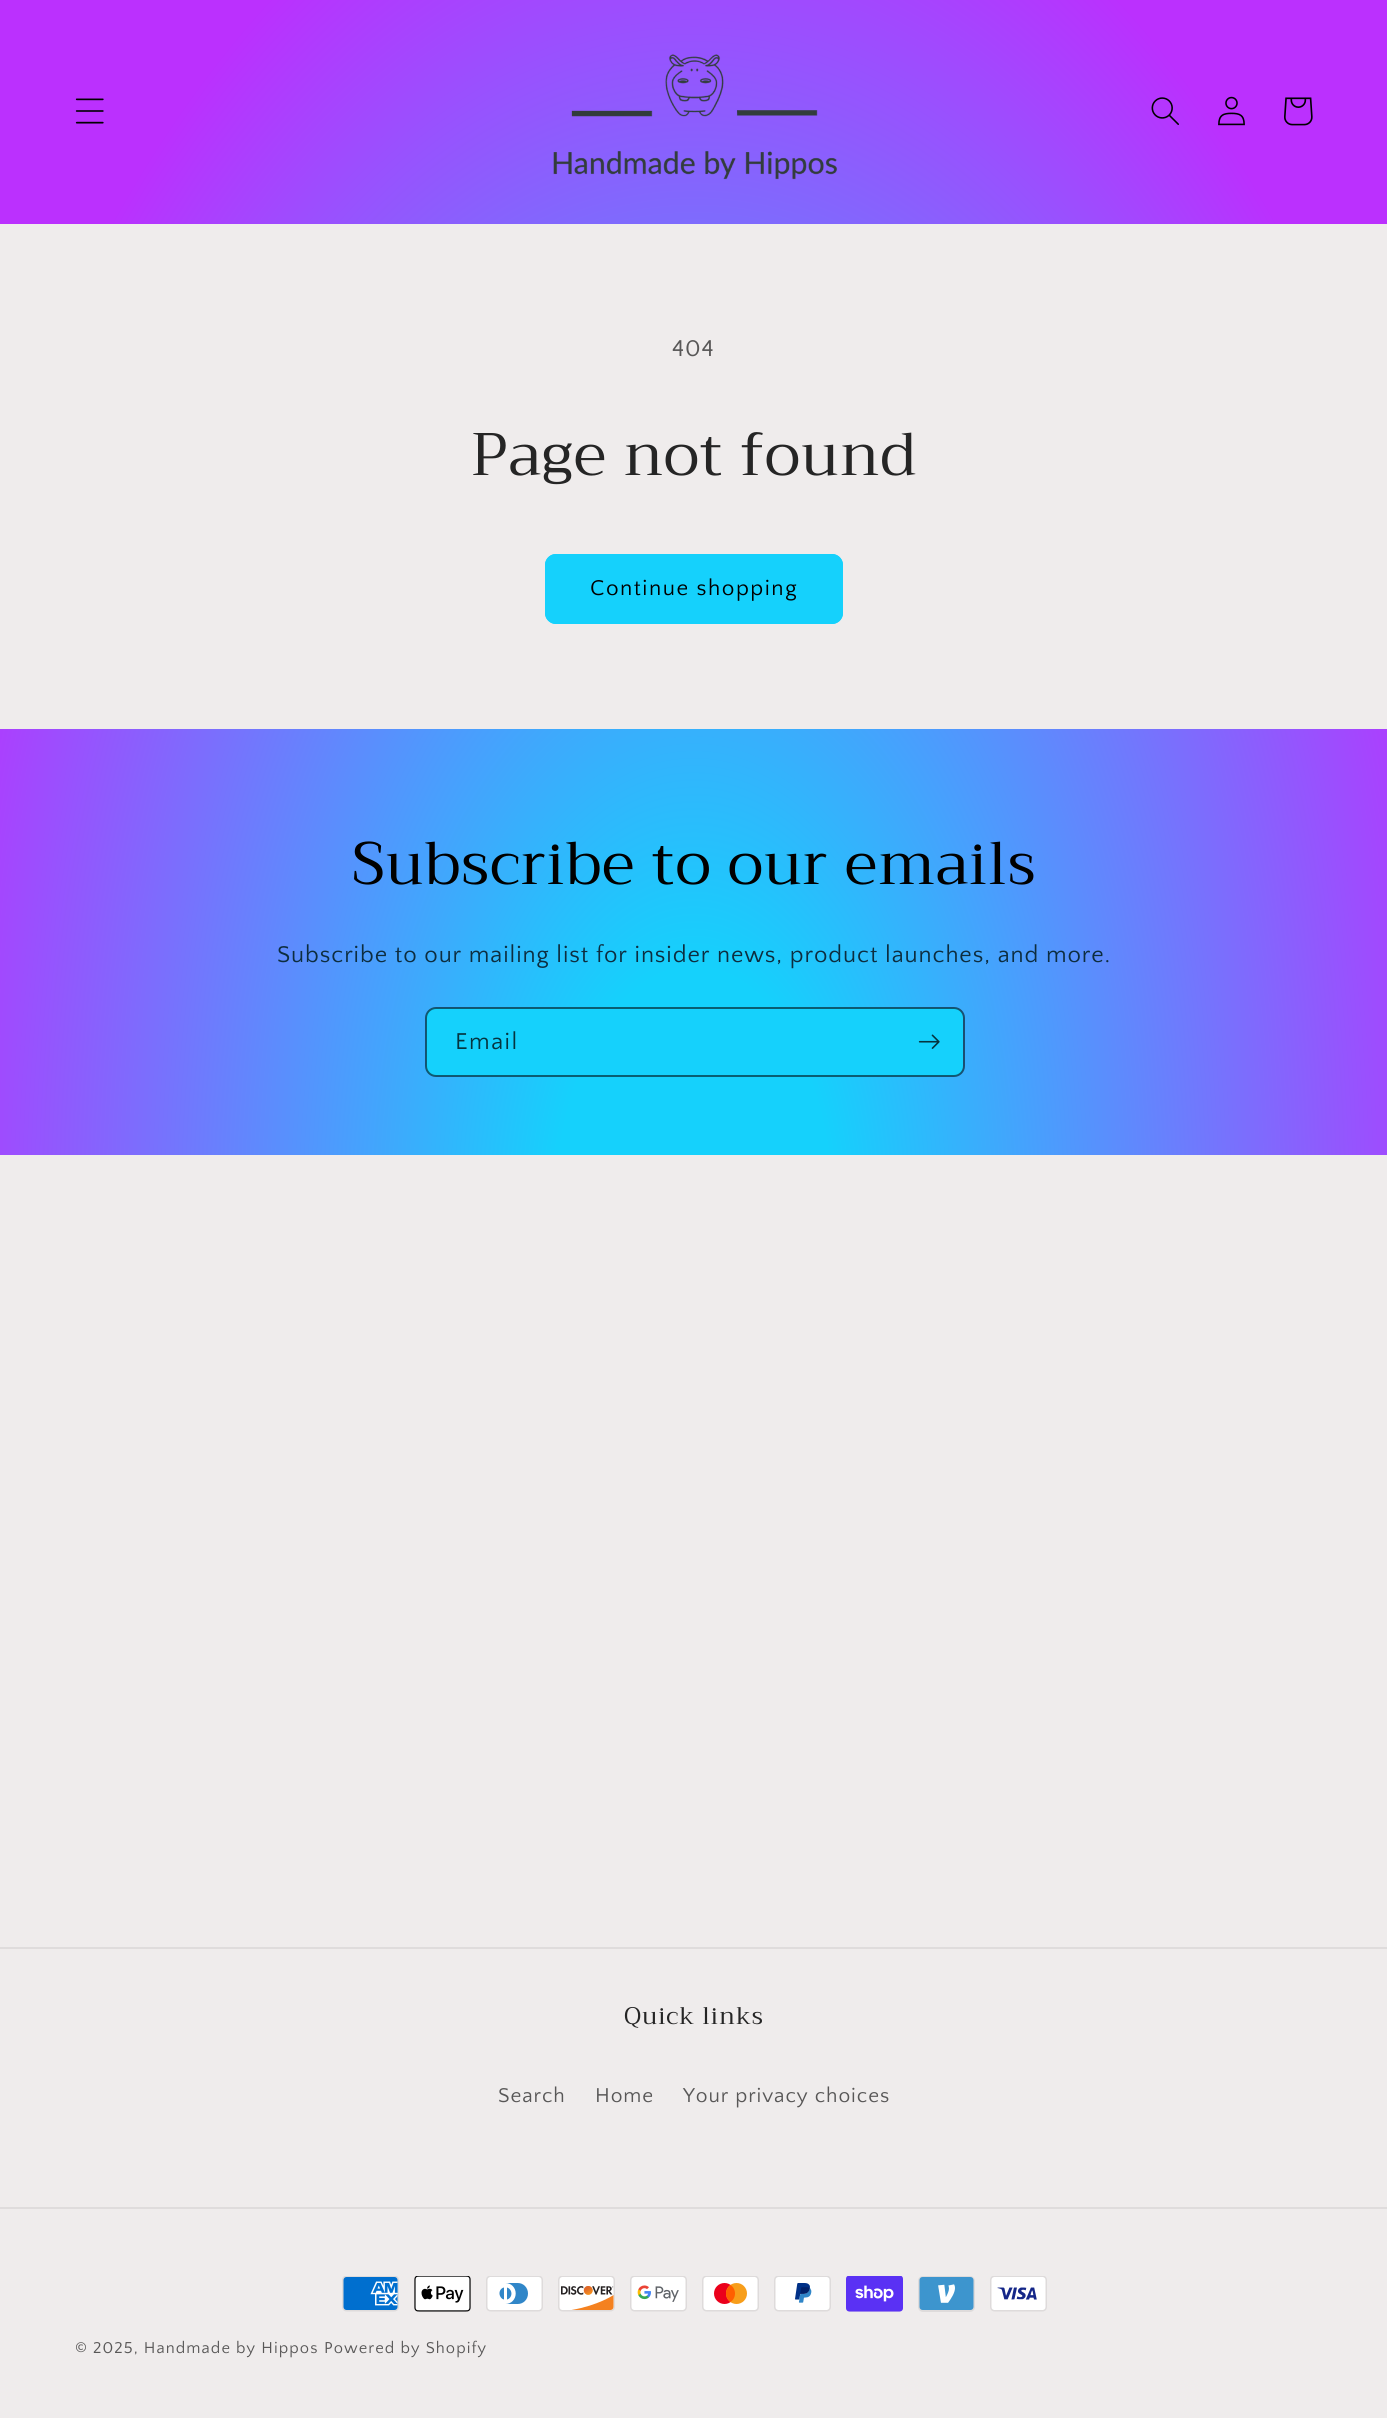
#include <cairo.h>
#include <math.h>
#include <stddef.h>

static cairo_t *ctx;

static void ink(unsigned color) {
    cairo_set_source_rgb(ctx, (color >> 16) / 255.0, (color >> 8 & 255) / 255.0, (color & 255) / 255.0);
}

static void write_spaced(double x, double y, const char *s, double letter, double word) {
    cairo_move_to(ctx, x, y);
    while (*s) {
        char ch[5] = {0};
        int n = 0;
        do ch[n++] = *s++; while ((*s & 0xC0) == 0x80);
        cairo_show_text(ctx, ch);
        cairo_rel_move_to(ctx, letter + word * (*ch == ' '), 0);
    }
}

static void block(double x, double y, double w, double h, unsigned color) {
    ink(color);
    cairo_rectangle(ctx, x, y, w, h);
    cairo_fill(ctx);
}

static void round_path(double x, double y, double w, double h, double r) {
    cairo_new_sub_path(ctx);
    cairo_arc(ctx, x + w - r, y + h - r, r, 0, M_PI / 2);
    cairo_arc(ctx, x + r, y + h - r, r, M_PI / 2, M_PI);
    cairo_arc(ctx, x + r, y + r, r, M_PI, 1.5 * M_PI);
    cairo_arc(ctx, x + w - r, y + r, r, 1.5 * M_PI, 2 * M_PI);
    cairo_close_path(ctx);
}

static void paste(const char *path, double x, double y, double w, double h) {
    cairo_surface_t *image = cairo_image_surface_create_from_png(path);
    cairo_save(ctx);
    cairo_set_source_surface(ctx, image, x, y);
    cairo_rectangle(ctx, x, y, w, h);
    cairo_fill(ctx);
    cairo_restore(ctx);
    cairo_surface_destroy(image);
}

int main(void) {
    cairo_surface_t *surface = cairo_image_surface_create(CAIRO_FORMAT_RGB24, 1387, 2418);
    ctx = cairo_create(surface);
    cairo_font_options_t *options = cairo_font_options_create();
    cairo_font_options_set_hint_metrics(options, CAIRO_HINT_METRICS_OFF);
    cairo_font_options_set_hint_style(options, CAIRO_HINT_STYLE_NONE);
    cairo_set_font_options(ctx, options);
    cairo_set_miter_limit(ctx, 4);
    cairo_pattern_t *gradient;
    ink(0xefecec);
    cairo_paint(ctx);
    gradient = cairo_pattern_create_radial(0, 0, 0, 0, 0, 1);
    cairo_pattern_set_matrix(gradient, &(cairo_matrix_t){1.0 / 981, 0, 0, 1.0 / 1710, -1.0 * 694 / 981, -1.0 * 1209 / 1710});
    cairo_pattern_add_color_stop_rgba(gradient, 0.14, 0.082, 0.82, 0.988, 1);
    cairo_pattern_add_color_stop_rgba(gradient, 0.83, 0.733, 0.188, 0.996, 1);
    cairo_set_source(ctx, gradient);
    cairo_pattern_destroy(gradient);
    cairo_rectangle(ctx, 0, 0, 1387, 224);
    cairo_fill(ctx);
    paste("pic1.png", 75, 98, 29, 26);
    paste("pic2.png", 553, 54, 285, 126);
    paste("pic3.png", 1151, 97, 28, 28);
    paste("pic4.png", 1218, 96, 27, 30);
    paste("pic5.png", 1284, 97, 29, 29);
    cairo_select_font_face(ctx, "Quattrocento Sans", CAIRO_FONT_SLANT_NORMAL, CAIRO_FONT_WEIGHT_NORMAL);
    cairo_set_font_size(ctx, 24);
    ink(0x585757);
    write_spaced(672, 356, "404", 0.9, 0);
    cairo_select_font_face(ctx, "Trirong", CAIRO_FONT_SLANT_NORMAL, CAIRO_FONT_WEIGHT_NORMAL);
    cairo_set_font_size(ctx, 60);
    ink(0x252525);
    write_spaced(471, 475, "Page not found", 0.9, 0);
    ink(0x15d1fc);
    round_path(545, 554, 298, 70, 11);
    cairo_fill(ctx);
    round_path(546, 555, 296, 68, 10);
    cairo_stroke(ctx);
    cairo_select_font_face(ctx, "Quattrocento Sans", CAIRO_FONT_SLANT_NORMAL, CAIRO_FONT_WEIGHT_NORMAL);
    cairo_set_font_size(ctx, 22.5);
    ink(0x000000);
    write_spaced(590, 595, "Continue shopping", 1.5, 0);
    gradient = cairo_pattern_create_radial(0, 0, 0, 0, 0, 1);
    cairo_pattern_set_matrix(gradient, &(cairo_matrix_t){1.0 / 981, 0, 0, 1.0 / 1710, -1.0 * 694 / 981, -1.0 * 1209 / 1710});
    cairo_pattern_add_color_stop_rgba(gradient, 0.14, 0.082, 0.82, 0.988, 1);
    cairo_pattern_add_color_stop_rgba(gradient, 0.83, 0.733, 0.188, 0.996, 1);
    cairo_set_source(ctx, gradient);
    cairo_pattern_destroy(gradient);
    cairo_rectangle(ctx, 0, 729, 1387, 426);
    cairo_fill(ctx);
    cairo_select_font_face(ctx, "Trirong", CAIRO_FONT_SLANT_NORMAL, CAIRO_FONT_WEIGHT_NORMAL);
    cairo_set_font_size(ctx, 60);
    ink(0x000000);
    write_spaced(352, 884, "Subscribe to our emails", 0.9, 0);
    cairo_select_font_face(ctx, "Quattrocento Sans", CAIRO_FONT_SLANT_NORMAL, CAIRO_FONT_WEIGHT_NORMAL);
    cairo_set_font_size(ctx, 24);
    ink(0x0d2d3f);
    write_spaced(277, 962, "Subscribe to our mailing list for insider news, product launches, and more.", 0.9, 0);
    ink(0x15d1fc);
    round_path(426, 1008, 537, 68, 9);
    cairo_fill(ctx);
    round_path(426, 1008, 538, 68, 10);
    cairo_set_source_rgba(ctx, 0, 0, 0, 0.55);
    cairo_stroke(ctx);
    ink(0x05343f);
    write_spaced(455, 1049, "Email", 1.5, 0);
    paste("pic6.png", 918, 1034, 22, 15);
    block(0, 1947, 1387, 2, 0xdfdcdc);
    cairo_select_font_face(ctx, "Trirong", CAIRO_FONT_SLANT_NORMAL, CAIRO_FONT_WEIGHT_NORMAL);
    ink(0x252525);
    write_spaced(624, 2024, "Quick links", 0.9, 0);
    cairo_select_font_face(ctx, "Quattrocento Sans", CAIRO_FONT_SLANT_NORMAL, CAIRO_FONT_WEIGHT_NORMAL);
    cairo_set_font_size(ctx, 21);
    ink(0x585757);
    write_spaced(498, 2102, "Search", 0.9, 0);
    write_spaced(595, 2102, "Home", 0.9, 0);
    write_spaced(683, 2102, "Your privacy choices", 0.9, 0);
    block(0, 2207, 1387, 2, 0xdfdcdc);
    paste("pic7.png", 342, 2276, 57, 36);
    paste("pic8.png", 414, 2276, 57, 36);
    paste("pic9.png", 486, 2276, 57, 36);
    paste("pic10.png", 558, 2276, 57, 36);
    paste("pic11.png", 630, 2276, 57, 36);
    paste("pic12.png", 702, 2276, 57, 36);
    paste("pic13.png", 774, 2276, 57, 36);
    paste("pic14.png", 846, 2276, 57, 36);
    paste("pic15.png", 918, 2276, 57, 36);
    paste("pic16.png", 990, 2276, 57, 36);
    cairo_set_font_size(ctx, 16.5);
    ink(0x585757);
    write_spaced(75, 2353, "© 2025, Handmade by Hippos", 1.05, 0);
    write_spaced(324, 2353, "Powered by Shopify", 1.05, 0);
    cairo_surface_write_to_png(surface, "screenshot.png");
    cairo_font_options_destroy(options);
    cairo_destroy(ctx);
    cairo_surface_destroy(surface);
    return 0;
}
